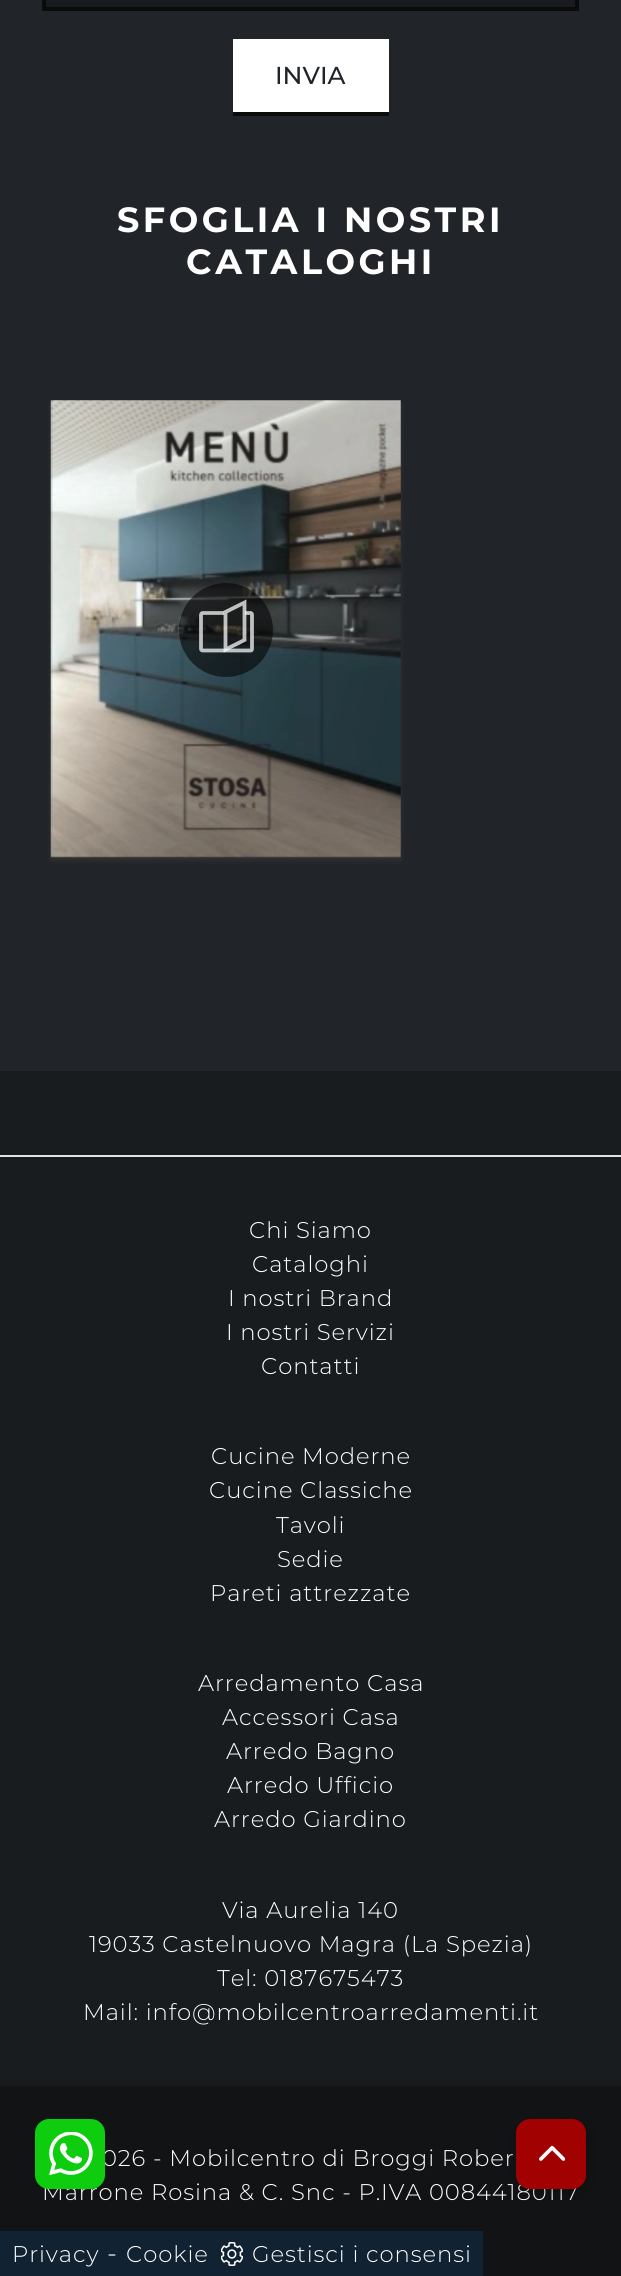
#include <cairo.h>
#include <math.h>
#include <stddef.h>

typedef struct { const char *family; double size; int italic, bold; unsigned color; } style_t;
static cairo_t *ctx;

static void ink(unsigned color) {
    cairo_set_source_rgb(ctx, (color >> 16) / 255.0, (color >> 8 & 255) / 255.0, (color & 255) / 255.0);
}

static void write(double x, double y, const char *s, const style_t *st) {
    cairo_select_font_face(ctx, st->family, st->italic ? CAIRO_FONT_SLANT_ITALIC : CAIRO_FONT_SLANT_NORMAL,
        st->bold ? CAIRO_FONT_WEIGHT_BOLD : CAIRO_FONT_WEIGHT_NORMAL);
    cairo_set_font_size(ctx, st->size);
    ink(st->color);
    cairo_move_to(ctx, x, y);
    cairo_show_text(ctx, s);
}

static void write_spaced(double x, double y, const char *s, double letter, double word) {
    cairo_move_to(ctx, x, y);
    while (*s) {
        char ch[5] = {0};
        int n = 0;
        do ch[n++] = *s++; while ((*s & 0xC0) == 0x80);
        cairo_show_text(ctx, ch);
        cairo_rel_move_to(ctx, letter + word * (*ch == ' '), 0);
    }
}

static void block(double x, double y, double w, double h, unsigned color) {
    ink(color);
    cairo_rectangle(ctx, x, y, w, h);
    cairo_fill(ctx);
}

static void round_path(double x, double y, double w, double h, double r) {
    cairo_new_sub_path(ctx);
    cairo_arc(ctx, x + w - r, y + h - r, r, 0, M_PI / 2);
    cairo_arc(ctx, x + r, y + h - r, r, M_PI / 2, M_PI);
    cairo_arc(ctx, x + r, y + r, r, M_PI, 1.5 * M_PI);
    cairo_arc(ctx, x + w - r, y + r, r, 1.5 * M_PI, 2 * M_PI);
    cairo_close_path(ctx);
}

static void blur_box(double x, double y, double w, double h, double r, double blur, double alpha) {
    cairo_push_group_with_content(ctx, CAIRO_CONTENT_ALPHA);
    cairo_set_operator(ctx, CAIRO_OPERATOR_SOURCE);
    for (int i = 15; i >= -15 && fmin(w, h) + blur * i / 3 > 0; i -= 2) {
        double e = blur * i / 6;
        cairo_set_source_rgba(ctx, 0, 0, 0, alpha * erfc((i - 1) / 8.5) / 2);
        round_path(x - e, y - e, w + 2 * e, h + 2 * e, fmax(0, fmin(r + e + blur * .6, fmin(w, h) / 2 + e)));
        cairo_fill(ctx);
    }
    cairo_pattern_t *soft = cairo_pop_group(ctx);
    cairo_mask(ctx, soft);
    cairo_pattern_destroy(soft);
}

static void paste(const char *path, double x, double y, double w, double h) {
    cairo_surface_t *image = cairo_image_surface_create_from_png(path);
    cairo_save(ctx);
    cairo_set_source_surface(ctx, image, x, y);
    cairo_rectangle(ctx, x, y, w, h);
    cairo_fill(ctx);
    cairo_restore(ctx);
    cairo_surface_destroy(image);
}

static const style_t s1 = {"Montserrat Medium", 24.5, 0, 0, 0x212529};

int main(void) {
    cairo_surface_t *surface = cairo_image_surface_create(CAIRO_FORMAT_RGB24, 621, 2276);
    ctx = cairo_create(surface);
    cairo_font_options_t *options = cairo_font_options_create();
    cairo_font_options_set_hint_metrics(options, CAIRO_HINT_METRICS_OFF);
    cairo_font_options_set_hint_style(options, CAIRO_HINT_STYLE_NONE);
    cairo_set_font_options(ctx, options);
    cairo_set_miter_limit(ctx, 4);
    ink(0x212529);
    cairo_paint(ctx);
    ink(0x191c1f);
    cairo_rectangle(ctx, 44, -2, 533, 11);
    cairo_fill_preserve(ctx);
    ink(0x0b0b0b);
    cairo_set_line_width(ctx, 4);
    cairo_stroke(ctx);
    block(233, 39, 156, 73, 0xffffff);
    block(233, 112, 156, 4, 0x0b0b0b);
    write(275, 84, "INVIA", &s1);
    cairo_select_font_face(ctx, "Montserrat", CAIRO_FONT_SLANT_NORMAL, CAIRO_FONT_WEIGHT_BOLD);
    cairo_set_font_size(ctx, 35);
    ink(0xffffff);
    write_spaced(117, 232, "SFOGLIA I NOSTRI", 3.5, 0);
    write_spaced(186, 274, "CATALOGHI", 3.5, 0);
    ink(0x373232);
    blur_box(51, 404, 350, 457, 0, 2, 0.72);
    paste("pic1.png", 50, 400, 351, 458);
    cairo_set_source_rgba(ctx, 0, 0, 0, 0.56);
    cairo_arc(ctx, 226, 630, 47, 0, 2 * M_PI);
    cairo_fill(ctx);
    cairo_new_path(ctx);
    cairo_move_to(ctx, 224, 613);
    cairo_line_to(ctx, 203, 613);
    cairo_curve_to(ctx, 202, 613, 201, 613.5, 201, 615);
    cairo_line_to(ctx, 201, 649);
    cairo_curve_to(ctx, 201, 650, 202, 650.5, 203, 650.5);
    cairo_line_to(ctx, 250.5, 650.5);
    cairo_curve_to(ctx, 251.5, 650.5, 252, 650, 252, 649);
    cairo_line_to(ctx, 252, 615);
    cairo_curve_to(ctx, 252, 613.5, 251.5, 613, 250.5, 613);
    cairo_line_to(ctx, 245, 613);
    cairo_set_source_rgba(ctx, 1, 1, 1, 0.72);
    cairo_set_line_width(ctx, 3.8);
    cairo_stroke(ctx);
    cairo_new_path(ctx);
    cairo_move_to(ctx, 225.5, 612);
    cairo_line_to(ctx, 225.5, 649.5);
    cairo_line_to(ctx, 244.5, 640);
    cairo_line_to(ctx, 244.5, 602.5);
    cairo_close_path(ctx);
    cairo_stroke(ctx);
    block(0, 1071, 621, 84, 0x191c1f);
    block(0, 1157, 621, 929, 0x191c1f);
    block(0, 1155, 621, 2, 0xdee2e6);
    cairo_select_font_face(ctx, "Montserrat Light", CAIRO_FONT_SLANT_NORMAL, CAIRO_FONT_WEIGHT_NORMAL);
    cairo_set_font_size(ctx, 22.75);
    ink(0xffffff);
    write_spaced(249, 1238, "Chi Siamo", 0.9, 0);
    write_spaced(252, 1272, "Cataloghi", 0.9, 0);
    write_spaced(228, 1306, "I nostri Brand", 0.9, 0);
    write_spaced(226, 1340, "I nostri Servizi", 0.9, 0);
    write_spaced(261, 1374, "Contatti", 0.9, 0);
    write_spaced(211, 1464, "Cucine Moderne", 0.9, 0);
    write_spaced(209, 1498, "Cucine Classiche", 0.9, 0);
    write_spaced(276, 1533, "Tavoli", 0.9, 0);
    write_spaced(277, 1567, "Sedie", 0.9, 0);
    write_spaced(210, 1601, "Pareti attrezzate", 0.9, 0);
    write_spaced(198, 1691, "Arredamento Casa", 0.9, 0);
    write_spaced(222, 1725, "Accessori Casa", 0.9, 0);
    write_spaced(226, 1759, "Arredo Bagno", 0.9, 0);
    write_spaced(227, 1793, "Arredo Ufficio", 0.9, 0);
    write_spaced(214, 1827, "Arredo Giardino", 0.9, 0);
    write_spaced(222, 1918, "Via Aurelia 140", 0.9, 0);
    write_spaced(89, 1952, "19033 Castelnuovo Magra (La Spezia)", 0.9, 0);
    write_spaced(217, 1986, "Tel: 0187675473", 0.9, 0);
    write_spaced(83, 2020, "Mail: info@mobilcentroarredamenti.it", 0.9, 0);
    block(0, 2086, 621, 190, 0x111315);
    ink(0xffffff);
    write_spaced(102, 2166, "026 - Mobilcentro di Broggi Rober", 0.9, 0);
    write_spaced(42, 2200, "Marrone Rosina & C. Snc - P.IVA 00844180117", 0.9, 0);
    ink(0x0ecc0e);
    round_path(35, 2119, 70, 70, 14);
    cairo_fill(ctx);
    paste("pic2.png", 49, 2132, 44, 43);
    ink(0x000000);
    blur_box(518, 2123, 70, 70, 14, 2.5, 0.12);
    blur_box(518, 2123, 70, 70, 14, 10.5, 0.14);
    ink(0xa20102);
    round_path(516, 2119, 70, 70, 14);
    cairo_fill(ctx);
    paste("pic3.png", 539, 2145, 26, 16);
    block(0, 2231, 483, 45, 0x112233);
    ink(0xffffff);
    write_spaced(12, 2262, "Privacy", 0.9, 0);
    cairo_set_font_size(ctx, 26);
    write_spaced(107, 2262, "-", 0.9, 0);
    cairo_set_font_size(ctx, 22.75);
    write_spaced(126, 2262, "Cookie", 0.9, 0);
    paste("pic4.png", 221, 2242, 22, 24);
    write_spaced(252, 2262, "Gestisci i consensi", 0.9, 0);
    cairo_surface_write_to_png(surface, "screenshot.png");
    cairo_font_options_destroy(options);
    cairo_destroy(ctx);
    cairo_surface_destroy(surface);
    return 0;
}
